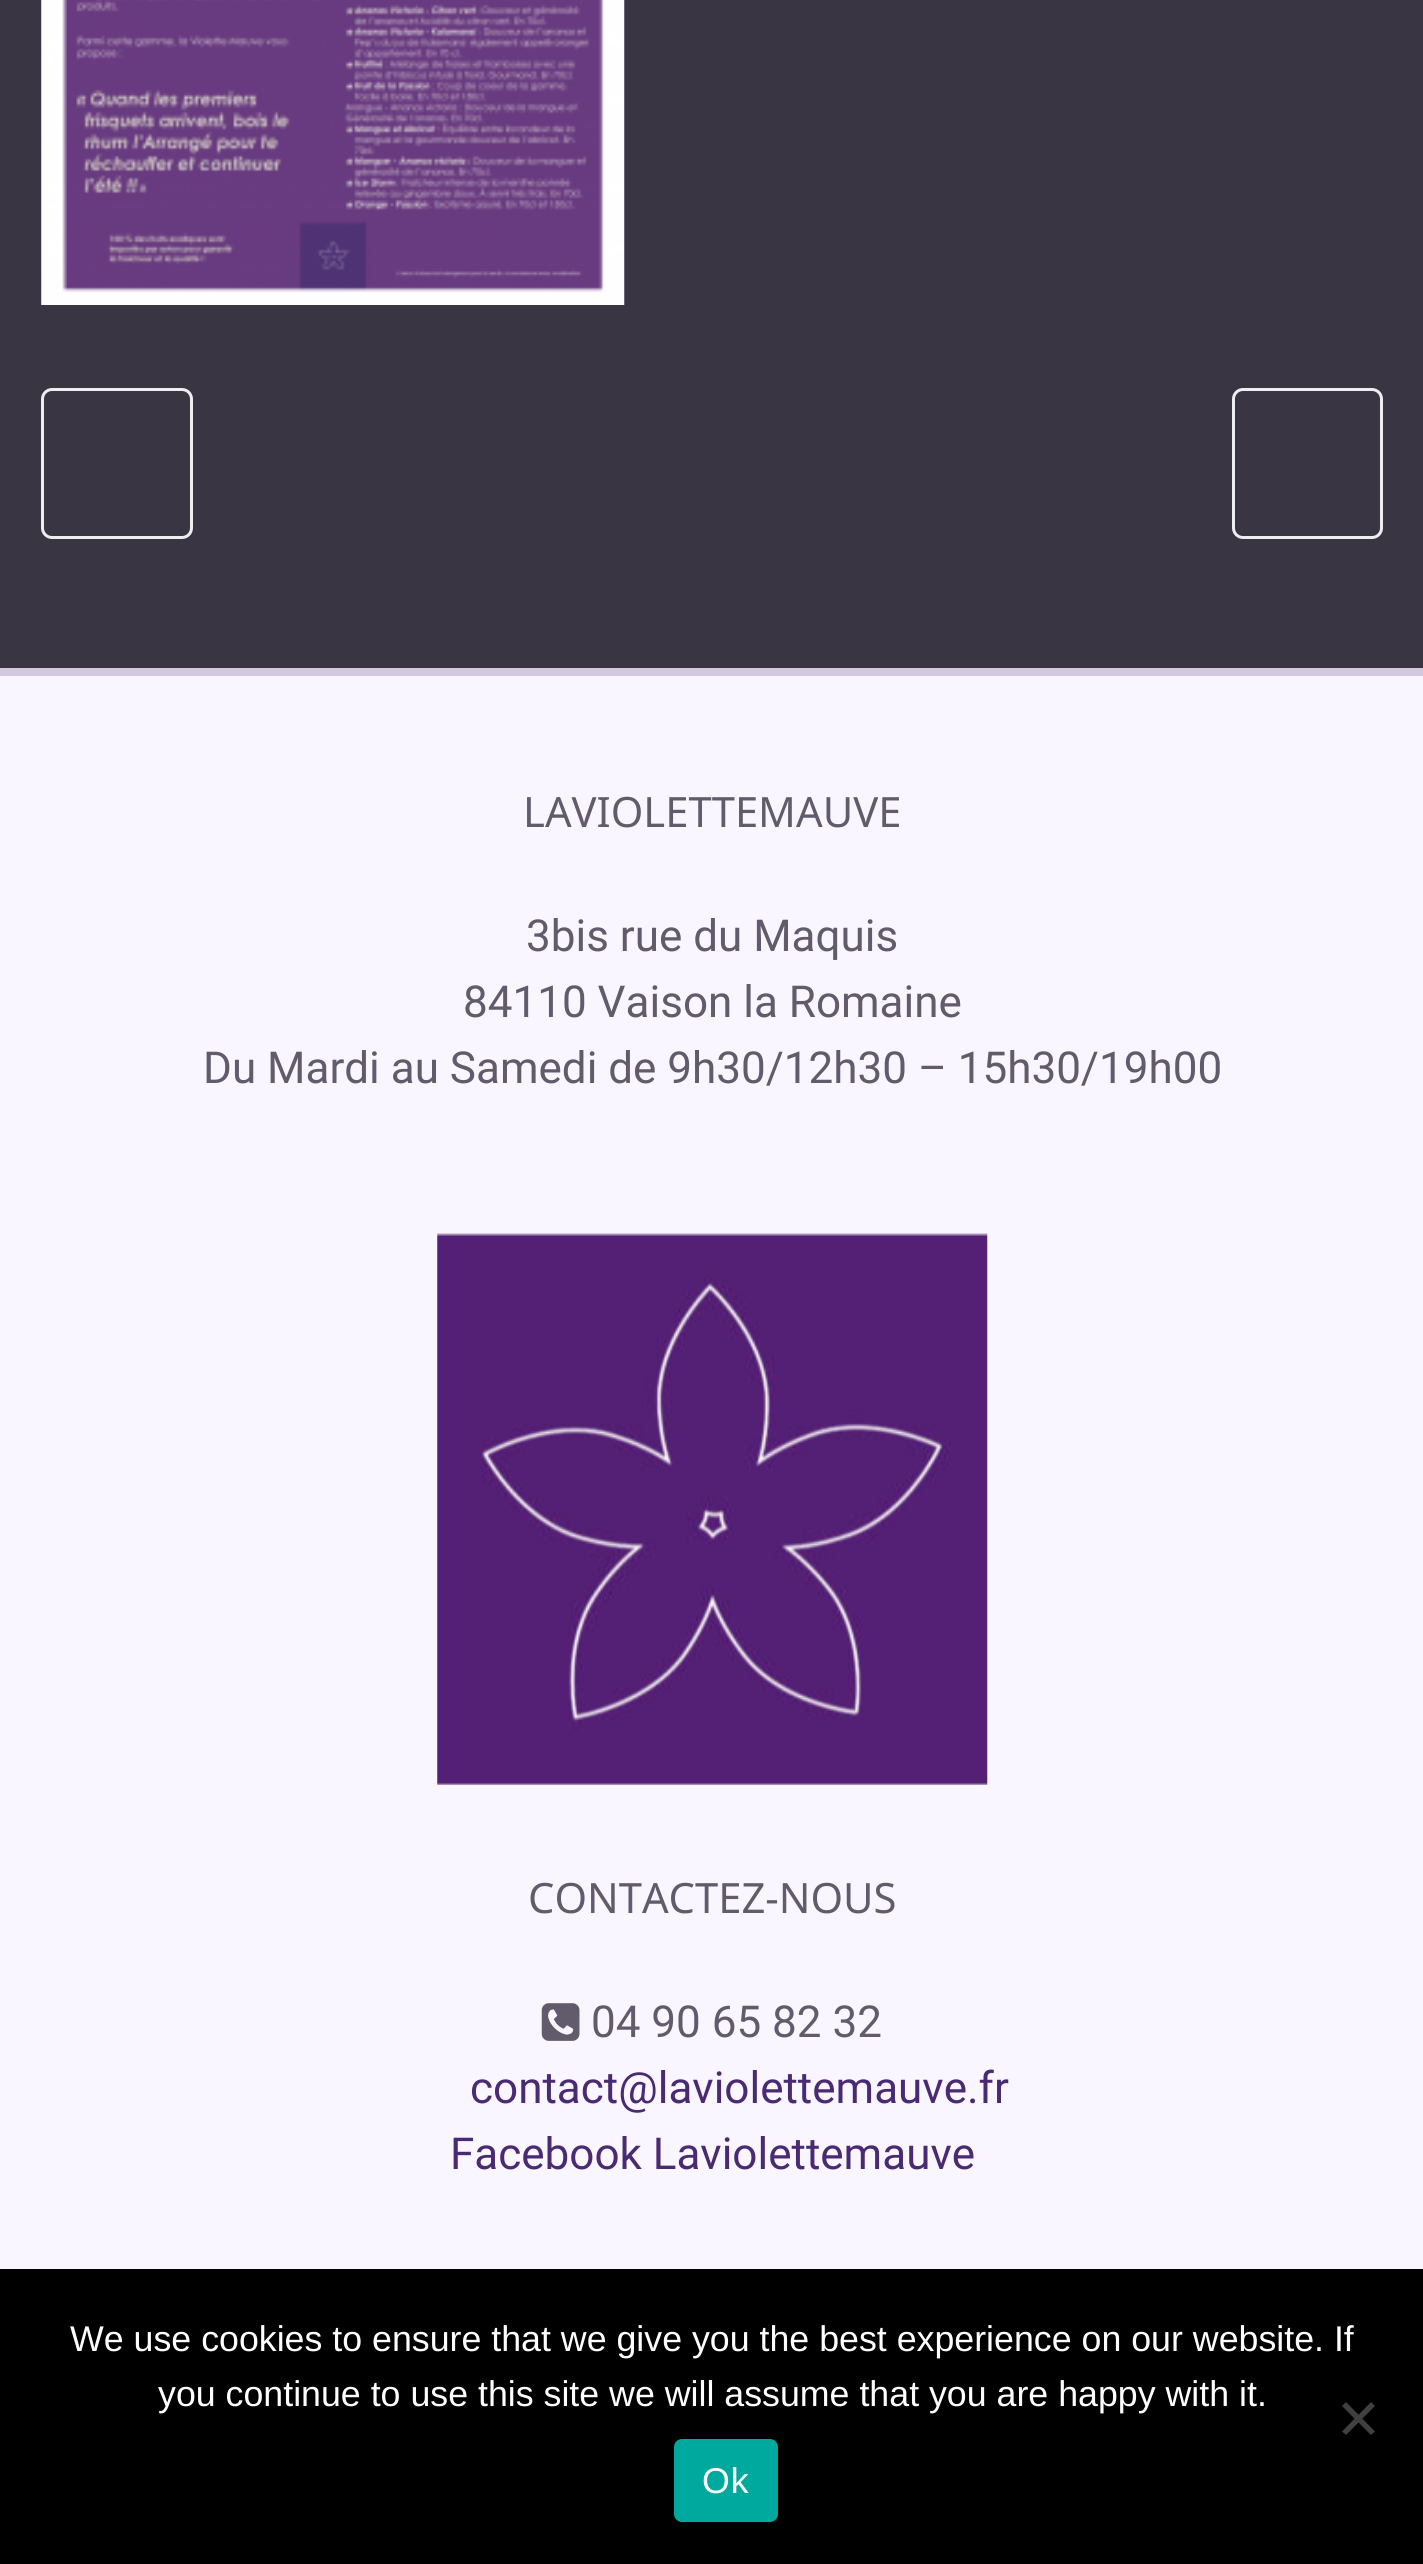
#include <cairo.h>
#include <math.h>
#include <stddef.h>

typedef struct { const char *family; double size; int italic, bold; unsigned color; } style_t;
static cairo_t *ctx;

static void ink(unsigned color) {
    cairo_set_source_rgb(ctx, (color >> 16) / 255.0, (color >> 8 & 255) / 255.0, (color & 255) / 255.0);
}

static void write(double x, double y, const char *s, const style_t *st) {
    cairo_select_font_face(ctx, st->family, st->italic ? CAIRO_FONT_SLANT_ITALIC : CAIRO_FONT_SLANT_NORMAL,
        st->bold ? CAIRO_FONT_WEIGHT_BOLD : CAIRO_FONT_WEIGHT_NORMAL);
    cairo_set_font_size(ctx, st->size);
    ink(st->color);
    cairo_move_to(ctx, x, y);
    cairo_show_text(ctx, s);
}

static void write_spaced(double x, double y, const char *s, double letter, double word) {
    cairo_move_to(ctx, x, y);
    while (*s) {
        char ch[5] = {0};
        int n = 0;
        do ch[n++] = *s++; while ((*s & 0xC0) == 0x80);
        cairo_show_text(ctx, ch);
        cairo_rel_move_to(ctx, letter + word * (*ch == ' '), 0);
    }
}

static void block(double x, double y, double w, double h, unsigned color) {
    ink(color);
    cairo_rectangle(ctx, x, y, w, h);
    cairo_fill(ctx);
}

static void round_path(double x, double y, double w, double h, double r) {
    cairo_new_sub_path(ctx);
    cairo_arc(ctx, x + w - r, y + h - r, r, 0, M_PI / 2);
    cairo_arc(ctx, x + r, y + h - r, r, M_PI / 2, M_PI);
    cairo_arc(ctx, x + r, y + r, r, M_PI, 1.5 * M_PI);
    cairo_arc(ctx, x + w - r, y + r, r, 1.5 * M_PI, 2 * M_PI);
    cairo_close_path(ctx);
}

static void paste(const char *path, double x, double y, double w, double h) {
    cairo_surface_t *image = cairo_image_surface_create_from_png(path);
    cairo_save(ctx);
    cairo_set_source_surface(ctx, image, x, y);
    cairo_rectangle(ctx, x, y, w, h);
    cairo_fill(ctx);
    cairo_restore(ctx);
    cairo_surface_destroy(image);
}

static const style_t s1 = {"Noto Sans", 41.75, 0, 0, 0x625b6b};
static const style_t s2 = {"Roboto", 44, 0, 0, 0x625b6b};
static const style_t s3 = {"Roboto", 44, 0, 0, 0x4a2b73};
static const style_t s4 = {"Liberation Sans", 35.75, 0, 0, 0xffffff};

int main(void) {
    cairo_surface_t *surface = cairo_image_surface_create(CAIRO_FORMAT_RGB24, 1423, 2564);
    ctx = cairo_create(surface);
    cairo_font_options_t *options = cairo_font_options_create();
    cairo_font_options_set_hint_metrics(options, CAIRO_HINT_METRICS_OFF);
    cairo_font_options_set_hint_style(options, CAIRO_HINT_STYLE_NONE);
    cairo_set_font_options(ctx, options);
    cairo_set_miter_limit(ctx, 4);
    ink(0x3a3542);
    cairo_paint(ctx);
    paste("pic1.png", 41, 0, 584, 305);
    round_path(42.5, 389.5, 149, 148, 9.5);
    ink(0xeceeef);
    cairo_set_line_width(ctx, 3);
    cairo_stroke(ctx);
    round_path(1233.5, 389.5, 148, 148, 9.5);
    cairo_stroke(ctx);
    block(0, 676, 1423, 1593, 0xfaf6ff);
    block(0, 668, 1423, 8, 0xd2cadc);
    write(523, 827, "LAVIOLETTEMAUVE", &s1);
    write(526, 951, "3bis rue du Maquis", &s2);
    write(463, 1017, "84110 Vaison la Romaine", &s2);
    write(203, 1083, "Du Mardi au Samedi de 9h30/12h30 – 15h30/19h00", &s2);
    paste("pic2.png", 437, 1233, 551, 552);
    write(528, 1913, "CONTACTEZ-NOUS", &s1);
    paste("pic3.png", 541, 2003, 39, 38);
    write(591, 2037, "04 90 65 82 32", &s2);
    write(470, 2103, "contact@laviolettemauve.fr", &s3);
    write(450, 2169, "Facebook Laviolettemauve", &s3);
    block(0, 2269, 1423, 295, 0x000000);
    write(70, 2351, "We use cookies to ensure that we give you the best experience on our website. If", &s4);
    write(158, 2406, "you continue to use this site we will assume that you are happy with it.", &s4);
    ink(0x404040);
    cairo_new_path(ctx);
    cairo_move_to(ctx, 1371, 2402);
    cairo_line_to(ctx, 1375, 2406);
    cairo_line_to(ctx, 1346, 2435);
    cairo_line_to(ctx, 1342, 2431.5);
    cairo_close_path(ctx);
    cairo_fill(ctx);
    cairo_new_path(ctx);
    cairo_move_to(ctx, 1342, 2406);
    cairo_line_to(ctx, 1346, 2402);
    cairo_line_to(ctx, 1375, 2431.5);
    cairo_line_to(ctx, 1371, 2435);
    cairo_close_path(ctx);
    cairo_fill(ctx);
    ink(0x00a99d);
    round_path(674, 2439, 104, 83, 8);
    cairo_fill(ctx);
    ink(0xffffff);
    write_spaced(702, 2493, "Ok", 1, 0);
    cairo_surface_write_to_png(surface, "screenshot.png");
    cairo_font_options_destroy(options);
    cairo_destroy(ctx);
    cairo_surface_destroy(surface);
    return 0;
}
